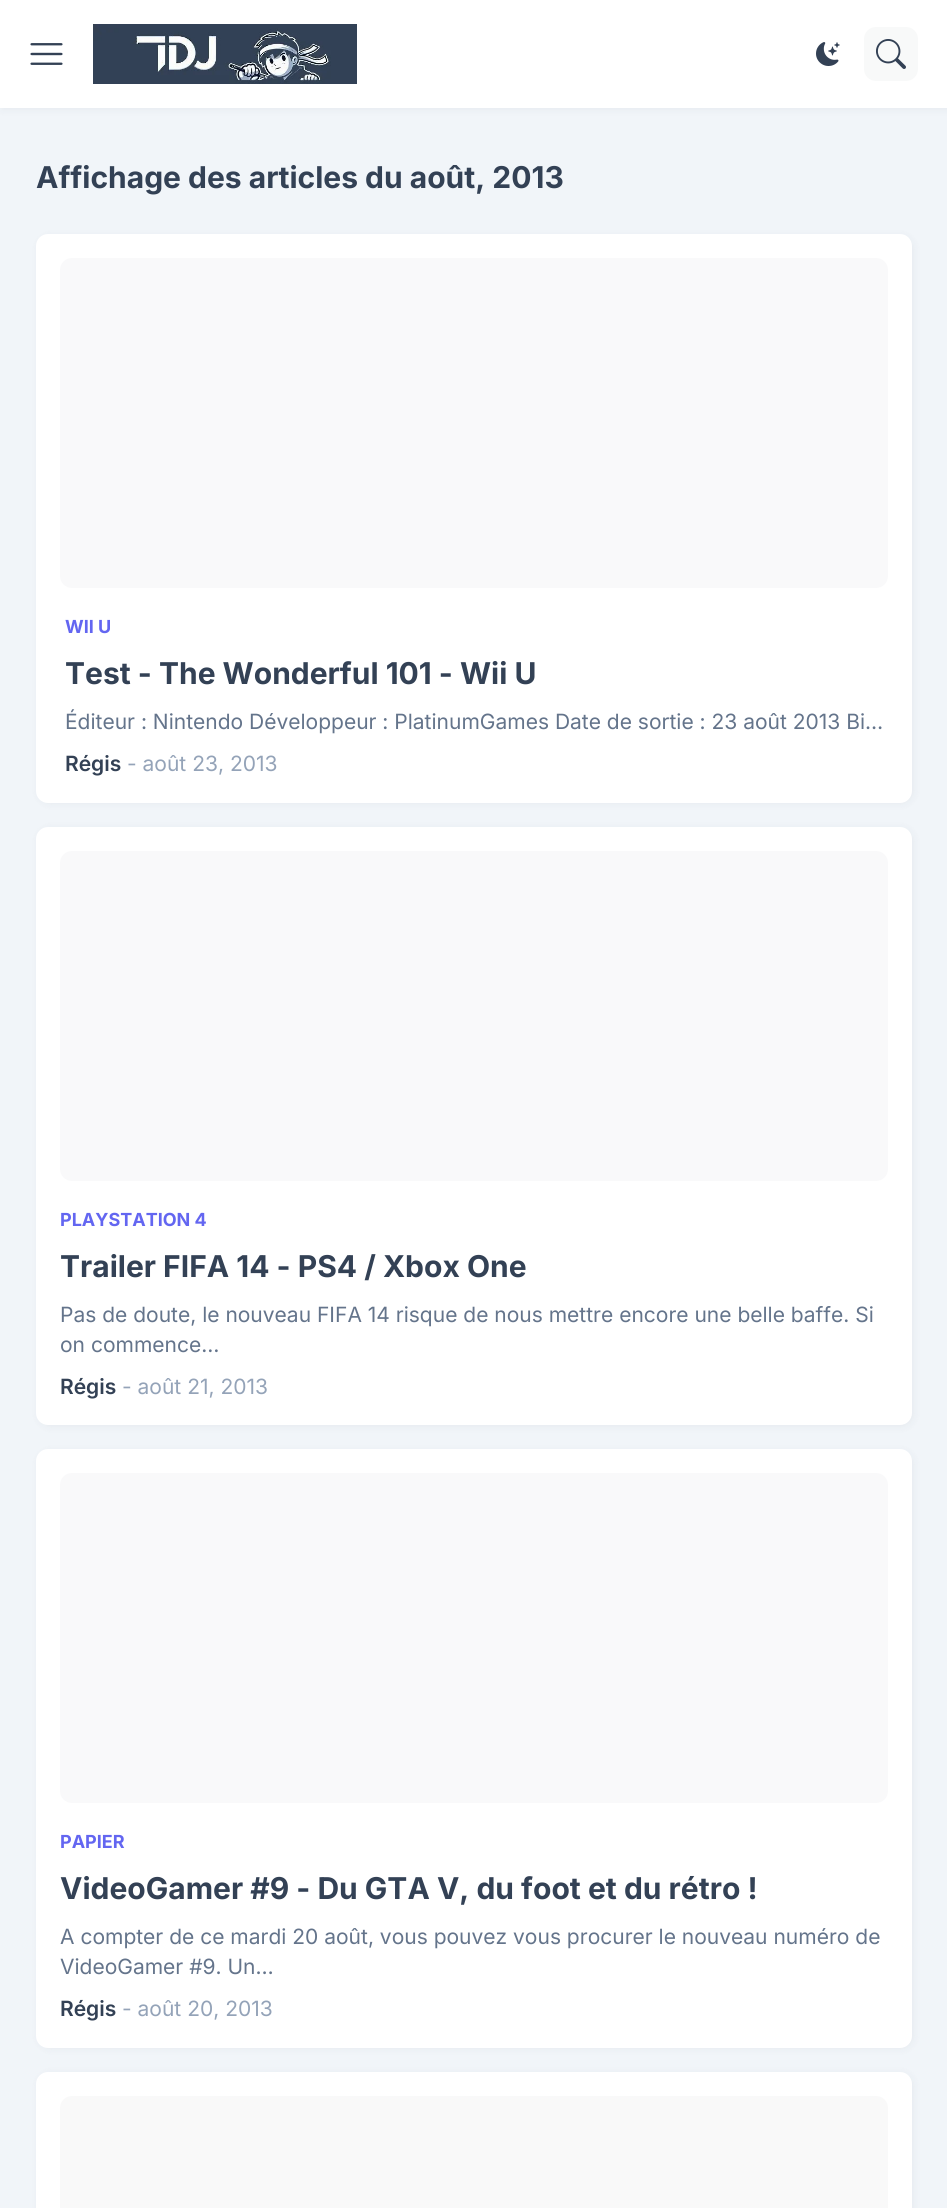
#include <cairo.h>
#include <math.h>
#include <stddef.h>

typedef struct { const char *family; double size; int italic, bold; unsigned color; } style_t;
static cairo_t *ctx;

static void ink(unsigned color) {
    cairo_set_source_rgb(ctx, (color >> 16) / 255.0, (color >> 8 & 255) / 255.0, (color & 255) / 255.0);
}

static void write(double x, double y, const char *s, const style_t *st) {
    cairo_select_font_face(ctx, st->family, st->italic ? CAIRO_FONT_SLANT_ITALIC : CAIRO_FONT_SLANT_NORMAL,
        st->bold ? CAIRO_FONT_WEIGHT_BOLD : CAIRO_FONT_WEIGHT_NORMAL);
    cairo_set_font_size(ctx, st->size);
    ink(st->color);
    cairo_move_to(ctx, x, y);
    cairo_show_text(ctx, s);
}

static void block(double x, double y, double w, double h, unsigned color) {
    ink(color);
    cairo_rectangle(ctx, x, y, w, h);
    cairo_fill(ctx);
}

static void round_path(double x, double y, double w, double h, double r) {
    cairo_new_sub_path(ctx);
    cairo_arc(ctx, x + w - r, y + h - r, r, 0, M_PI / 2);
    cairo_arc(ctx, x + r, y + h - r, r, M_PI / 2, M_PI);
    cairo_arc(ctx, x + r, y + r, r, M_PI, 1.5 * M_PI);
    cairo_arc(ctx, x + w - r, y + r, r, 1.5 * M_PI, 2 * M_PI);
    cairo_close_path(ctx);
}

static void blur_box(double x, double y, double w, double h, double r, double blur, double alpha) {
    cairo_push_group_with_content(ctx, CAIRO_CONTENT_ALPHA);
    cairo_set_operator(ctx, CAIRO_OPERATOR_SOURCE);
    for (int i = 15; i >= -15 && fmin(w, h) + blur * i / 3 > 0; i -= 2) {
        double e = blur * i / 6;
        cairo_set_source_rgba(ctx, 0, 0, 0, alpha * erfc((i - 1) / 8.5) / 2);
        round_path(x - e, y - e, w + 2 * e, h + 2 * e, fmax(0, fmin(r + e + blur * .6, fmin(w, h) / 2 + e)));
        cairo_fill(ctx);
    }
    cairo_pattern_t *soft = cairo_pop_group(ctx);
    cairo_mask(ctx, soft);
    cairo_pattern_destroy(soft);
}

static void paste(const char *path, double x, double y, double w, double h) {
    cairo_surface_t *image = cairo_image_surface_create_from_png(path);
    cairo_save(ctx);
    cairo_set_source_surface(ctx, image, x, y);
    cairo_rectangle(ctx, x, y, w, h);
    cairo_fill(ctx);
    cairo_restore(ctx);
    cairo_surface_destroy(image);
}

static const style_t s1 = {"Inter", 30, 0, 1, 0x334155};
static const style_t s2 = {"Inter", 18, 0, 1, 0x6366f1};
static const style_t s3 = {"Inter", 21, 0, 0, 0x64748b};
static const style_t s4 = {"Inter SemiBold", 21, 0, 0, 0x334155};
static const style_t s5 = {"Inter", 21, 0, 0, 0x94a3b8};

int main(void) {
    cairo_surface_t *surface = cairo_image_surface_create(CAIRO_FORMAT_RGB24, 947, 2208);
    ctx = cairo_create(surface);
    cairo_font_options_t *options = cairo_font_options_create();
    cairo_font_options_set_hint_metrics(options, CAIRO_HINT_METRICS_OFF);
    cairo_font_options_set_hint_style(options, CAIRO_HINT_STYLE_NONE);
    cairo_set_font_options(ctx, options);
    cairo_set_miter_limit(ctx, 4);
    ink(0xf1f5f9);
    cairo_paint(ctx);
    ink(0x1e293b);
    blur_box(2, 2, 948, 108, 0, 4, 0.05);
    block(0, 0, 947, 108, 0xffffff);
    paste("pic1.png", 30, 43, 33, 22);
    paste("pic2.png", 93, 24, 264, 60);
    paste("pic3.png", 816, 42, 24, 24);
    ink(0xf8f9f9);
    round_path(864, 27, 54, 54, 12);
    cairo_fill(ctx);
    paste("pic4.png", 876, 39, 30, 30);
    write(36, 188, "Affichage des articles du août, 2013", &s1);
    ink(0x1e293b);
    blur_box(38, 236, 876, 568, 12, 4, 0.05);
    ink(0xffffff);
    round_path(36, 234, 876, 569, 12);
    cairo_fill(ctx);
    ink(0xf9f9fa);
    round_path(60, 258, 828, 330, 12);
    cairo_fill(ctx);
    write(65, 633, "WII U", &s2);
    write(65, 684, "Test - The Wonderful 101 - Wii U", &s1);
    write(65, 729, "Éditeur : Nintendo Développeur : PlatinumGames Date de sortie : 23 août 2013 Bi…", &s3);
    write(65, 771, "Régis", &s4);
    write(127, 771, "- août 23, 2013", &s5);
    ink(0x1e293b);
    blur_box(38, 828, 876, 599, 12, 4, 0.05);
    ink(0xffffff);
    round_path(36, 827, 876, 598, 12);
    cairo_fill(ctx);
    ink(0xf9f9fa);
    round_path(60, 851, 828, 330, 12);
    cairo_fill(ctx);
    write(60, 1226, "PLAYSTATION 4", &s2);
    write(60, 1277, "Trailer FIFA 14 - PS4 / Xbox One", &s1);
    write(60, 1322, "Pas de doute, le nouveau FIFA 14 risque de nous mettre encore une belle baffe. Si", &s3);
    write(60, 1352, "on commence…", &s3);
    write(60, 1394, "Régis", &s4);
    write(122, 1394, "- août 21, 2013", &s5);
    ink(0x1e293b);
    blur_box(38, 1451, 876, 598, 12, 4, 0.05);
    ink(0xffffff);
    round_path(36, 1449, 876, 599, 12);
    cairo_fill(ctx);
    ink(0xf9f9fa);
    round_path(60, 1473, 828, 330, 12);
    cairo_fill(ctx);
    write(60, 1848, "PAPIER", &s2);
    write(60, 1899, "VideoGamer #9 - Du GTA V, du foot et du rétro !", &s1);
    write(60, 1944, "A compter de ce mardi 20 août, vous pouvez vous procurer le nouveau numéro de", &s3);
    write(60, 1974, "VideoGamer #9. Un…", &s3);
    write(60, 2016, "Régis", &s4);
    write(122, 2016, "- août 20, 2013", &s5);
    ink(0x1e293b);
    blur_box(38, 2073, 876, 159, 12, 4, 0.05);
    ink(0xffffff);
    round_path(36, 2072, 876, 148, 12);
    cairo_fill(ctx);
    ink(0xf9f9f9);
    round_path(60, 2096, 828, 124, 12);
    cairo_fill(ctx);
    cairo_surface_write_to_png(surface, "screenshot.png");
    cairo_font_options_destroy(options);
    cairo_destroy(ctx);
    cairo_surface_destroy(surface);
    return 0;
}
